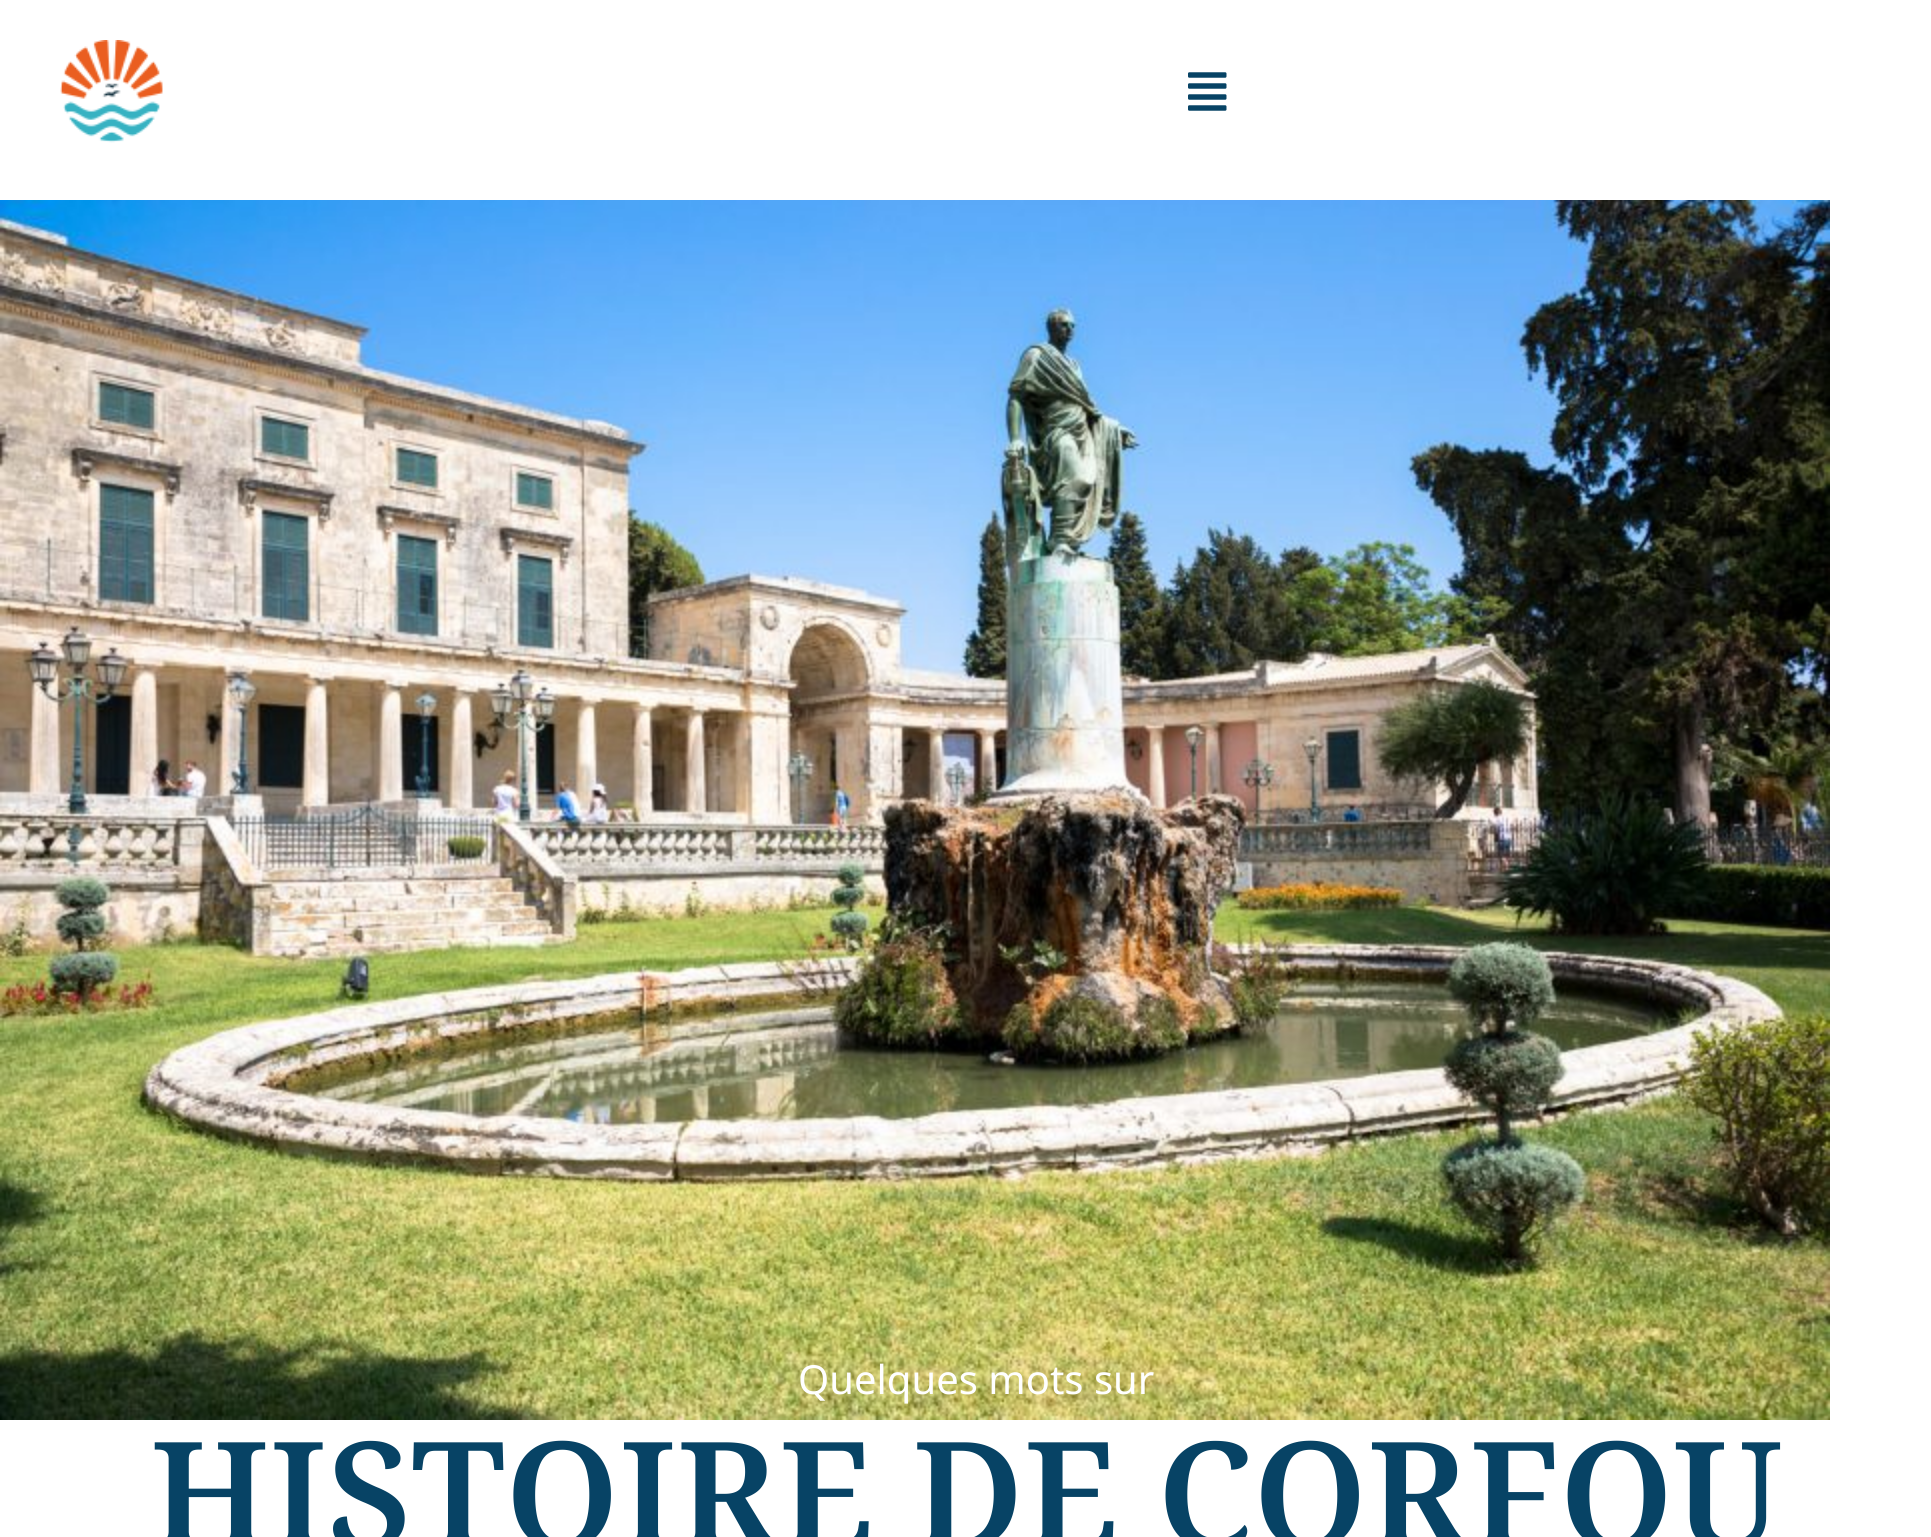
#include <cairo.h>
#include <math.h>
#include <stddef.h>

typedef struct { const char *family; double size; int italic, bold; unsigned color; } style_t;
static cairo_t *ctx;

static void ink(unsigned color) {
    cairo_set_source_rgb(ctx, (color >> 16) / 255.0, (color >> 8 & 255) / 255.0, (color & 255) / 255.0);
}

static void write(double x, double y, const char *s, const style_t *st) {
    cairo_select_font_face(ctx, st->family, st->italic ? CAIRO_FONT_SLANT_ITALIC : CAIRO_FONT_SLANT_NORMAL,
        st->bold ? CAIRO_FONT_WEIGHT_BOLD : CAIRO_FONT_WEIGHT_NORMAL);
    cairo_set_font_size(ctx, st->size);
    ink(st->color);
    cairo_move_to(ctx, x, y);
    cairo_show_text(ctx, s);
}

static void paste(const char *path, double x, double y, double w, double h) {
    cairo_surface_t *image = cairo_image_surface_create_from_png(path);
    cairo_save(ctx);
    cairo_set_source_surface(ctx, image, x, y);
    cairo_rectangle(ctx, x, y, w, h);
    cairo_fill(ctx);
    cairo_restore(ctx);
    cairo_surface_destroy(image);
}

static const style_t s1 = {"Noto Sans", 40, 0, 0, 0xffffff};
static const style_t s2 = {"Noto Serif SemiBold", 148, 0, 0, 0x074365};

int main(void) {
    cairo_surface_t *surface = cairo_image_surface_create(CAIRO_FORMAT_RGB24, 1931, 1537);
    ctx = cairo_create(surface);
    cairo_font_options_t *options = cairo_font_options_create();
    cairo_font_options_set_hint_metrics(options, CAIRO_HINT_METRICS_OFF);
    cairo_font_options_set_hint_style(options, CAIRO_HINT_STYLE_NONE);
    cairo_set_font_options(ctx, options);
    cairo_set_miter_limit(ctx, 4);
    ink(0xffffff);
    cairo_paint(ctx);
    paste("pic1.png", 60, 40, 103, 103);
    paste("pic2.png", 1188, 72, 39, 39);
    paste("pic3.png", 0, 200, 1830, 1220);
    write(798, 1394, "Quelques mots sur", &s1);
    write(150, 1548, "HISTOIRE DE CORFOU", &s2);
    cairo_surface_write_to_png(surface, "screenshot.png");
    cairo_font_options_destroy(options);
    cairo_destroy(ctx);
    cairo_surface_destroy(surface);
    return 0;
}
